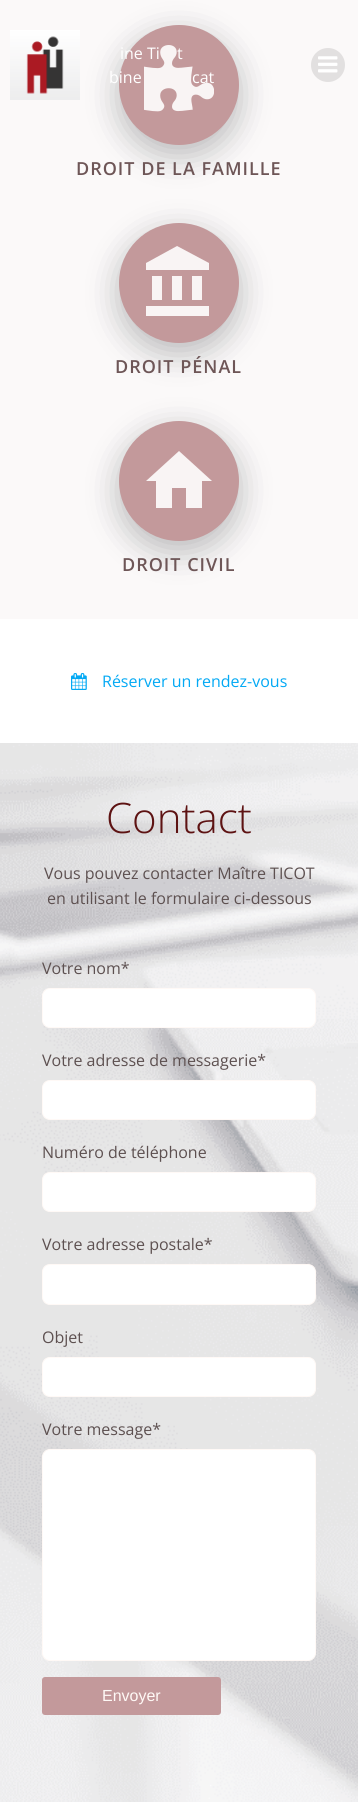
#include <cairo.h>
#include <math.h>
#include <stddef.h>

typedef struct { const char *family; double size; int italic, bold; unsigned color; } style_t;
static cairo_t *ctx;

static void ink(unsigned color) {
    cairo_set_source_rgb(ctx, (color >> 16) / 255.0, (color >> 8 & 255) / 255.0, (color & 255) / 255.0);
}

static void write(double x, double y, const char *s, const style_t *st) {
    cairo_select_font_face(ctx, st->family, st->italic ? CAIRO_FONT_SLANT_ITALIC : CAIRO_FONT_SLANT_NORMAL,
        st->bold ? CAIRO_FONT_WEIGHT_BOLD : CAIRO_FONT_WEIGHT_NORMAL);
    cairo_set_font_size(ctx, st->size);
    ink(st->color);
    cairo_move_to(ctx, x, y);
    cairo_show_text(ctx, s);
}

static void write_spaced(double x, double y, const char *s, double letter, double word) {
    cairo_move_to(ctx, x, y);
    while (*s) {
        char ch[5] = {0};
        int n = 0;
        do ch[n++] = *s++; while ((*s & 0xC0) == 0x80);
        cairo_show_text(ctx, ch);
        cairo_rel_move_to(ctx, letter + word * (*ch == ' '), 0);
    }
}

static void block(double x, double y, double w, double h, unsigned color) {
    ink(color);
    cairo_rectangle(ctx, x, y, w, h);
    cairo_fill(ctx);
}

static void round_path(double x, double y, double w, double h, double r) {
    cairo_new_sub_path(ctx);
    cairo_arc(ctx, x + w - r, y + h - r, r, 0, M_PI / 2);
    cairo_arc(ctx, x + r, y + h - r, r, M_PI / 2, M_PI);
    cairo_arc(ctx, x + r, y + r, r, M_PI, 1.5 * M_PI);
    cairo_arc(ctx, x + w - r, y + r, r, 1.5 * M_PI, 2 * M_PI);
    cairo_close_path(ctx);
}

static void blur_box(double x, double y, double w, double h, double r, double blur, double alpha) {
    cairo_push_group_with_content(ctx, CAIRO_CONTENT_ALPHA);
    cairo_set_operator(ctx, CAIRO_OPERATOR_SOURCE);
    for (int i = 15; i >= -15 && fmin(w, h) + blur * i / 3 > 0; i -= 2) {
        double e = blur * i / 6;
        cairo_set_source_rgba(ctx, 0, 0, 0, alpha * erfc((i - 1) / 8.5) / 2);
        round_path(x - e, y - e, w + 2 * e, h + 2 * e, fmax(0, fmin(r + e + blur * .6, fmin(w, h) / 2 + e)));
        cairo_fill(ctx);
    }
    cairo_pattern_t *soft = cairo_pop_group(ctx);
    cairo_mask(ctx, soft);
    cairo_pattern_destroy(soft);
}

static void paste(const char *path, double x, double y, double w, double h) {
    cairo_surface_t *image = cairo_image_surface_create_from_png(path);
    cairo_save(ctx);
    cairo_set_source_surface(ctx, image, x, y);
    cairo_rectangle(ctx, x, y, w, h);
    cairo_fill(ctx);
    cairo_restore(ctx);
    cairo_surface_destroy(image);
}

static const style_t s1 = {"Open Sans", 16, 0, 0, 0xffffff};
static const style_t s2 = {"Open Sans", 16, 0, 0, 0x03a9f4};
static const style_t s3 = {"Open Sans Light", 42, 0, 0, 0x5d1212};
static const style_t s4 = {"Open Sans", 16, 0, 0, 0x5d5050};
static const style_t s5 = {"Liberation Sans", 16, 0, 0, 0xfff9f6};

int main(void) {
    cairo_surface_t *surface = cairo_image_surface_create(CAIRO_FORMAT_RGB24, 358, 1802);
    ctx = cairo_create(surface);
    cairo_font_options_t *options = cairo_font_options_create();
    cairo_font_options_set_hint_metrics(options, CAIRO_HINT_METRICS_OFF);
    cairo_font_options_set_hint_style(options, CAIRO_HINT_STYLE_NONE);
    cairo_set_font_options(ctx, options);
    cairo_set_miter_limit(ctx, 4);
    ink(0xffffff);
    cairo_paint(ctx);
    block(0, 0, 358, 619, 0xfbf9f9);
    ink(0x313439);
    blur_box(117, 33, 124, 124, 62, 15, 0.3);
    paste("pic1.png", 10, 30, 70, 70);
    ink(0xc3999b);
    cairo_arc(ctx, 179, 85, 60, 0, 2 * M_PI);
    cairo_fill(ctx);
    paste("pic3.png", 144, 45, 70, 67);
    write(120, 59, "ine Ti", &s1);
    write(177, 59, "t", &s1);
    write(109, 83, "bine", &s1);
    write(192, 83, "cat", &s1);
    ink(0xe2e0e0);
    cairo_new_path(ctx);
    cairo_arc(ctx, 328, 65, 17, 0, 2 * M_PI);
    cairo_fill(ctx);
    paste("pic2.png", 318, 56, 20, 17);
    cairo_select_font_face(ctx, "Open Sans SemiBold", CAIRO_FONT_SLANT_NORMAL, CAIRO_FONT_WEIGHT_NORMAL);
    cairo_set_font_size(ctx, 18);
    ink(0x6e5657);
    write_spaced(76, 175, "DROIT DE LA FAMILLE", 1, 0);
    ink(0x313439);
    blur_box(117, 231, 124, 124, 62, 15, 0.3);
    ink(0xc3999b);
    cairo_arc(ctx, 179, 283, 60, 0, 2 * M_PI);
    cairo_fill(ctx);
    ink(0xf9f4f4);
    cairo_new_path(ctx);
    cairo_move_to(ctx, 177, 246);
    cairo_line_to(ctx, 209, 263);
    cairo_line_to(ctx, 209, 270);
    cairo_line_to(ctx, 146, 270);
    cairo_line_to(ctx, 146, 263);
    cairo_close_path(ctx);
    cairo_move_to(ctx, 192, 276);
    cairo_line_to(ctx, 202, 276);
    cairo_line_to(ctx, 202, 300);
    cairo_line_to(ctx, 192, 300);
    cairo_close_path(ctx);
    cairo_move_to(ctx, 146, 316);
    cairo_line_to(ctx, 146, 306);
    cairo_line_to(ctx, 209, 306);
    cairo_line_to(ctx, 209, 316);
    cairo_close_path(ctx);
    cairo_move_to(ctx, 172, 276);
    cairo_line_to(ctx, 182, 276);
    cairo_line_to(ctx, 182, 300);
    cairo_line_to(ctx, 172, 300);
    cairo_close_path(ctx);
    cairo_move_to(ctx, 152, 276);
    cairo_line_to(ctx, 162, 276);
    cairo_line_to(ctx, 162, 300);
    cairo_line_to(ctx, 152, 300);
    cairo_close_path(ctx);
    cairo_fill(ctx);
    ink(0x6e5657);
    write_spaced(115, 373, "DROIT PÉNAL", 1, 0);
    ink(0x313439);
    blur_box(117, 429, 124, 124, 62, 15, 0.3);
    ink(0xc3999b);
    cairo_arc(ctx, 179, 481, 60, 0, 2 * M_PI);
    cairo_fill(ctx);
    ink(0xf9f4f4);
    cairo_new_path(ctx);
    cairo_move_to(ctx, 172, 508);
    cairo_line_to(ctx, 156, 508);
    cairo_line_to(ctx, 156, 481);
    cairo_line_to(ctx, 146, 481);
    cairo_line_to(ctx, 179, 451);
    cairo_line_to(ctx, 212, 481);
    cairo_line_to(ctx, 202, 481);
    cairo_line_to(ctx, 202, 508);
    cairo_line_to(ctx, 186, 508);
    cairo_line_to(ctx, 186, 488);
    cairo_line_to(ctx, 172, 488);
    cairo_close_path(ctx);
    cairo_fill(ctx);
    ink(0x6e5657);
    write_spaced(122, 571, "DROIT CIVIL", 1, 0);
    paste("pic4.png", 71, 673, 16, 17);
    write(102, 687, "Réserver un rendez-vous", &s2);
    paste("pic5.png", 0, 743, 358, 1059);
    write(106, 833, "Contact", &s3);
    write(44, 879, "Vous pouvez contacter Maître TICOT", &s4);
    write(47, 904, "en utilisant le formulaire ci-dessous", &s4);
    write(42, 974, "Votre nom*", &s4);
    ink(0xffffff);
    round_path(42.5, 988.5, 273, 39, 7.5);
    cairo_fill_preserve(ctx);
    ink(0xfff9f6);
    cairo_set_line_width(ctx, 1);
    cairo_stroke(ctx);
    write(42, 1066, "Votre adresse de messagerie*", &s4);
    ink(0xffffff);
    round_path(42.5, 1080.5, 273, 39, 7.5);
    cairo_fill_preserve(ctx);
    ink(0xfff9f6);
    cairo_stroke(ctx);
    write(42, 1158, "Numéro de téléphone", &s4);
    ink(0xffffff);
    round_path(42.5, 1172.5, 273, 39, 7.5);
    cairo_fill_preserve(ctx);
    ink(0xfff9f6);
    cairo_stroke(ctx);
    write(42, 1250, "Votre adresse postale*", &s4);
    ink(0xffffff);
    round_path(42.5, 1264.5, 273, 40, 7.5);
    cairo_fill_preserve(ctx);
    ink(0xfff9f6);
    cairo_stroke(ctx);
    write(42, 1343, "Objet", &s4);
    ink(0xffffff);
    round_path(42.5, 1357.5, 273, 39, 7.5);
    cairo_fill_preserve(ctx);
    ink(0xfff9f6);
    cairo_stroke(ctx);
    write(42, 1435, "Votre message*", &s4);
    ink(0xffffff);
    round_path(42.5, 1449.5, 273, 211, 7.5);
    cairo_fill_preserve(ctx);
    ink(0xfff9f6);
    cairo_stroke(ctx);
    ink(0xc3999b);
    round_path(42, 1677, 179, 38, 3);
    cairo_fill(ctx);
    write(102, 1701, "Envoyer", &s5);
    cairo_surface_write_to_png(surface, "screenshot.png");
    cairo_font_options_destroy(options);
    cairo_destroy(ctx);
    cairo_surface_destroy(surface);
    return 0;
}
